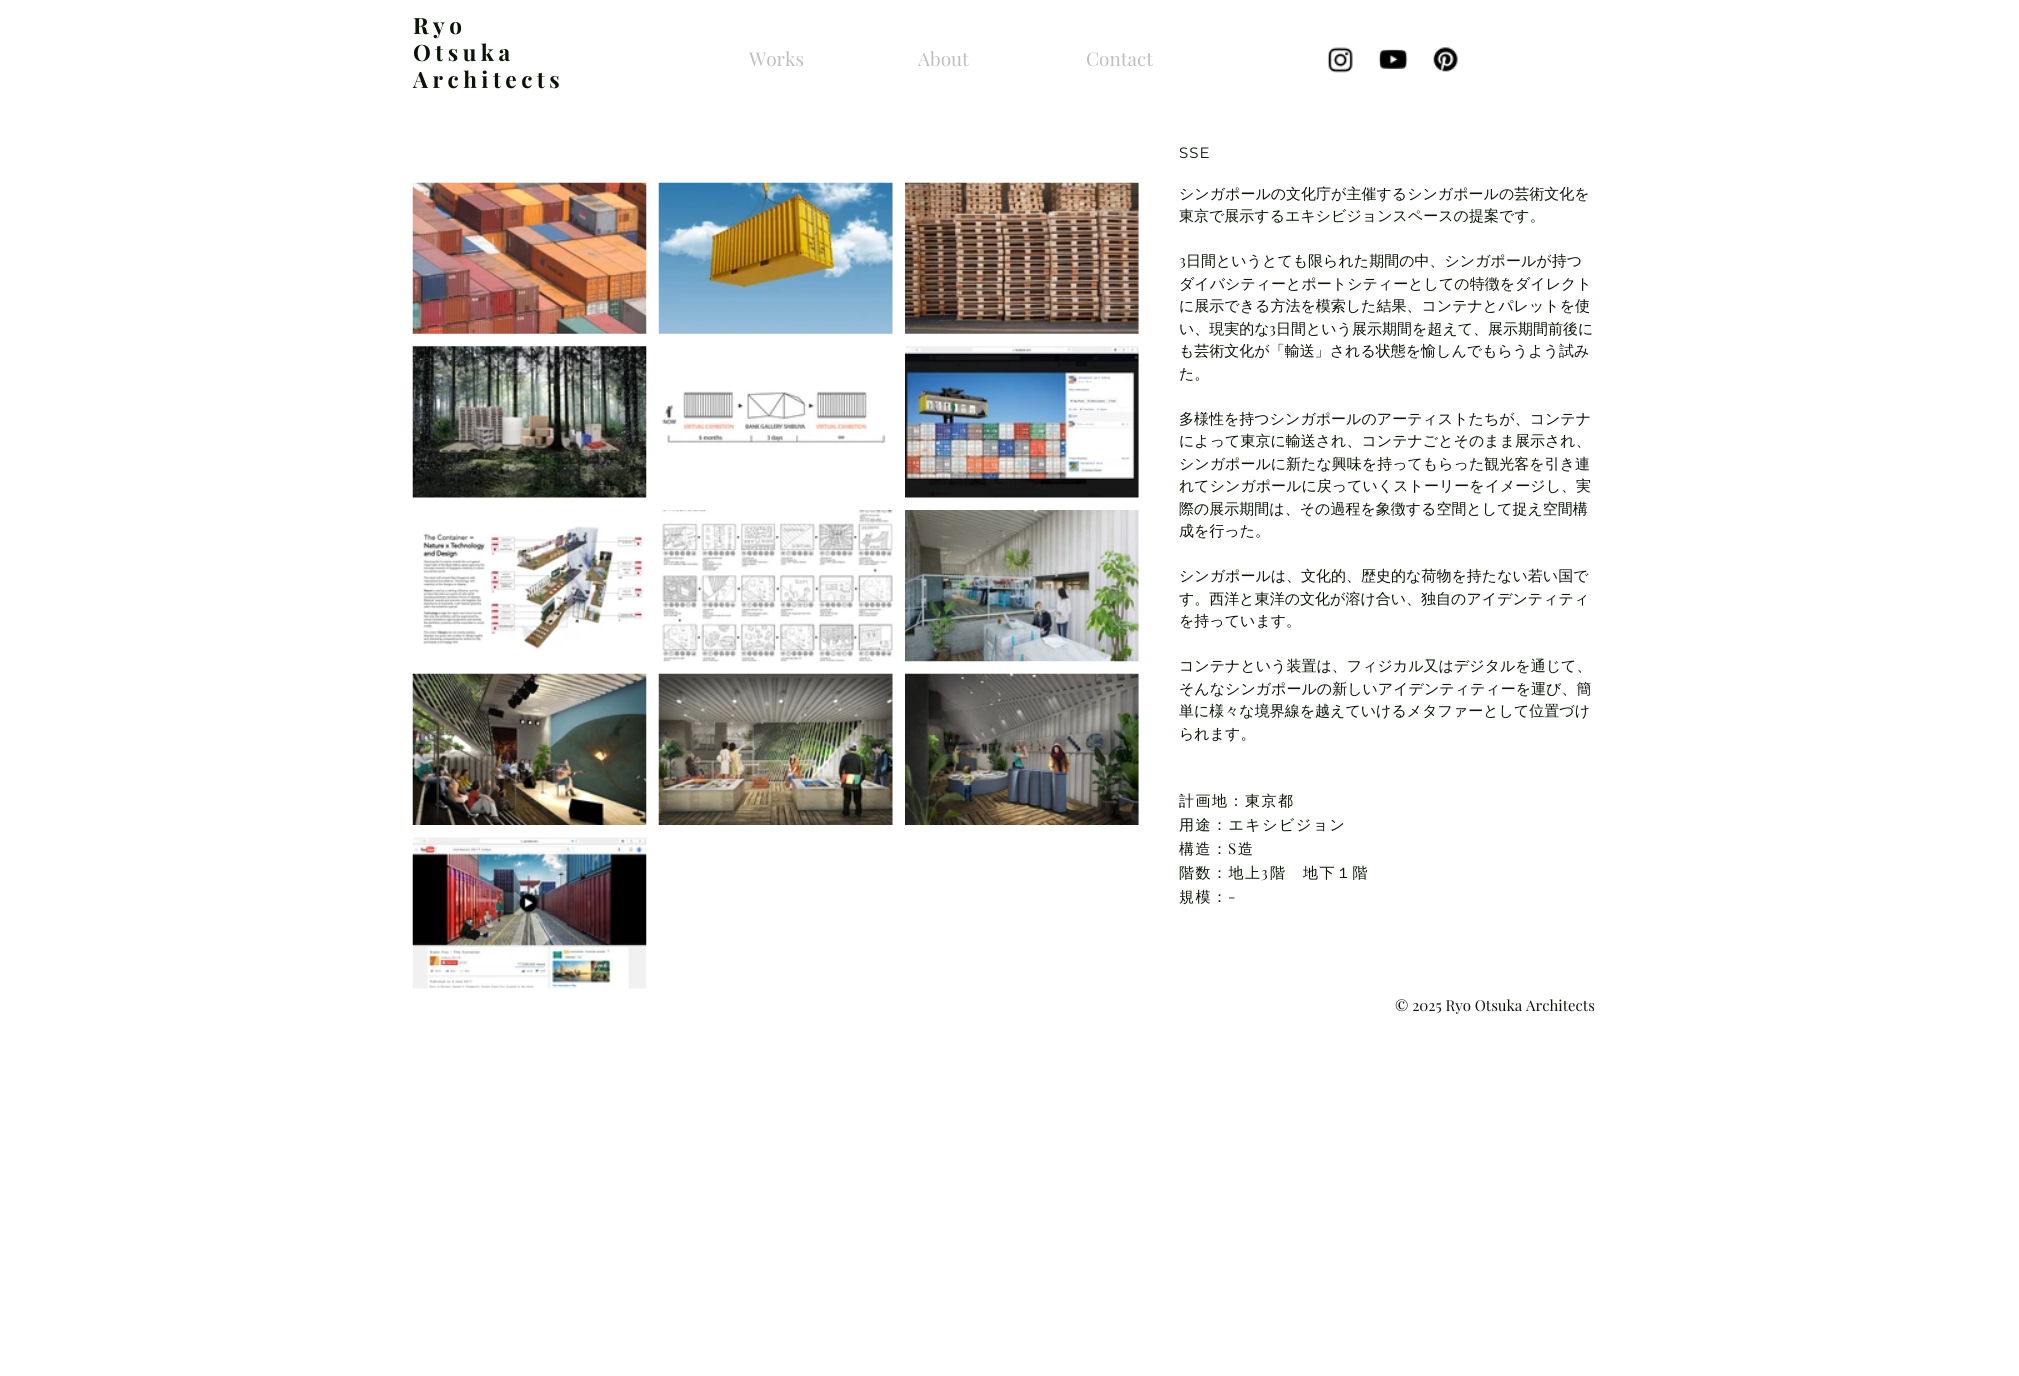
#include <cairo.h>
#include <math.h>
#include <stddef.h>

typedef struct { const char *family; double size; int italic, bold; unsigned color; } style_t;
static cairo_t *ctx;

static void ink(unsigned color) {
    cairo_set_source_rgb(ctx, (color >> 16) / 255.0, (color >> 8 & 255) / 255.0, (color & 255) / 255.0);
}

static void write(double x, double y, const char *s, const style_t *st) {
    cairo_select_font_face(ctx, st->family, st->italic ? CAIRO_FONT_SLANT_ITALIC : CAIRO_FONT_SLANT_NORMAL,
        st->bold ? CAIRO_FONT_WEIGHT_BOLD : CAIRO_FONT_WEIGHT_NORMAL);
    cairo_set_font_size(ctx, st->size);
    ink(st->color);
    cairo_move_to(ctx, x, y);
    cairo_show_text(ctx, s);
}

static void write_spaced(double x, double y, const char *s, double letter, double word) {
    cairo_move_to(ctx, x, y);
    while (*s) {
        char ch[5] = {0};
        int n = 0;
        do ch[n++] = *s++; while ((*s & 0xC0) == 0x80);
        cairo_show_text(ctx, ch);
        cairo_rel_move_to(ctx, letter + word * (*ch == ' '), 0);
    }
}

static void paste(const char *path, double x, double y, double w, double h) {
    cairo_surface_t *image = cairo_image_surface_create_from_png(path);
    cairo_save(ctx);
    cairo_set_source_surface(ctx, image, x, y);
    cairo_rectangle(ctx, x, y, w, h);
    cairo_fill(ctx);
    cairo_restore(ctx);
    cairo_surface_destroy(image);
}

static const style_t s1 = {"Playfair Display", 19, 0, 0, 0xbbc0b9};
static const style_t s2 = {"WenQuanYi Zen Hei Medium", 15, 0, 0, 0x091405};
static const style_t s3 = {"Playfair Display", 15, 0, 0, 0x091405};

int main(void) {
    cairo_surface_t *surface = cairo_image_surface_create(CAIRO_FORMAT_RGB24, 2019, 1376);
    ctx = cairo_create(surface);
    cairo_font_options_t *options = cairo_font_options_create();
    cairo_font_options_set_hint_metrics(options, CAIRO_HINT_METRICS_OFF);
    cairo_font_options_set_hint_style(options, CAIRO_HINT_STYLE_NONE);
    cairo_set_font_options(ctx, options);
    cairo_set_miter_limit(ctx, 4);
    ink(0xffffff);
    cairo_paint(ctx);
    cairo_select_font_face(ctx, "Playfair Display", CAIRO_FONT_SLANT_NORMAL, CAIRO_FONT_WEIGHT_BOLD);
    cairo_set_font_size(ctx, 22.5);
    ink(0x091405);
    write_spaced(413, 34, "Ryo", 4.5, 0);
    write_spaced(413, 61, "Otsuka", 4.5, 0);
    write_spaced(413, 88, "Architects", 4.5, 0);
    write(749, 66, "Works", &s1);
    write(918, 66, "About", &s1);
    write(1086, 66, "Contact", &s1);
    paste("pic1.png", 1327, 47, 26, 26);
    paste("pic2.png", 1378, 49, 30, 20);
    paste("pic3.png", 1433, 47, 25, 25);
    cairo_select_font_face(ctx, "Montserrat", CAIRO_FONT_SLANT_NORMAL, CAIRO_FONT_WEIGHT_NORMAL);
    cairo_set_font_size(ctx, 15);
    ink(0x091405);
    write_spaced(1179, 158, "SSE", 1, 0);
    paste("pic4.png", 412, 182, 235, 152);
    paste("pic5.png", 658, 182, 235, 152);
    paste("pic6.png", 905, 182, 234, 152);
    paste("pic7.png", 412, 346, 235, 152);
    paste("pic8.png", 661, 391, 225, 55);
    paste("pic9.png", 905, 346, 234, 152);
    paste("pic10.png", 423, 525, 220, 125);
    paste("pic11.png", 660, 510, 233, 152);
    paste("pic12.png", 905, 510, 234, 152);
    paste("pic13.png", 412, 673, 235, 152);
    paste("pic14.png", 658, 673, 235, 152);
    paste("pic15.png", 905, 673, 234, 152);
    paste("pic16.png", 412, 837, 235, 152);
    write(1179, 199, "シンガポールの文化庁が主催するシンガポールの芸術文化を", &s2);
    write(1179, 221, "東京で展示するエキシビジョンスペースの提案です。", &s2);
    write(1179, 266, "3", &s3);
    write(1186, 266, "日間というとても限られた期間の中、シンガポールが持つ", &s2);
    write(1179, 289, "ダイバシティーとポートシティーとしての特徴をダイレクト", &s2);
    write(1179, 311, "に展示できる方法を模索した結果、コンテナとパレットを使", &s2);
    write(1179, 334, "い、現実的な", &s2);
    write(1269, 334, "3", &s3);
    write(1276, 334, "日間という展示期間を超えて、展示期間前後に", &s2);
    write(1179, 356, "も芸術文化が「輸送」される状態を愉しんでもらうよう試み", &s2);
    write(1179, 379, "た。", &s2);
    write(1179, 424, "多様性を持つシンガポールのアーティストたちが、コンテナ", &s2);
    write(1179, 446, "によって東京に輸送され、コンテナごとそのまま展示され、", &s2);
    write(1179, 469, "シンガポールに新たな興味を持ってもらった観光客を引き連", &s2);
    write(1179, 491, "れてシンガポールに戻っていくストーリーをイメージし、実", &s2);
    write(1179, 514, "際の展示期間は、その過程を象徴する空間として捉え空間構", &s2);
    write(1179, 536, "成を行った。", &s2);
    write(1179, 581, "シンガポールは、文化的、歴史的な荷物を持たない若い国で", &s2);
    write(1179, 604, "す。西洋と東洋の文化が溶け合い、独自のアイデンティティ", &s2);
    write(1179, 626, "を持っています。", &s2);
    write(1179, 671, "コンテナという装置は、フィジカル又はデジタルを通じて、", &s2);
    write(1179, 694, "そんなシンガポールの新しいアイデンティティーを運び、簡", &s2);
    write(1179, 716, "単に様々な境界線を越えていけるメタファーとして位置づけ", &s2);
    write(1179, 739, "られます。", &s2);
    write_spaced(1179, 806, "計画地：東京都", 1.5, 0);
    write_spaced(1179, 830, "用途：エキシビジョン", 1.5, 0);
    write_spaced(1179, 854, "構造：", 1.5, 0);
    cairo_select_font_face(ctx, "Playfair Display", CAIRO_FONT_SLANT_NORMAL, CAIRO_FONT_WEIGHT_NORMAL);
    write_spaced(1228, 854, "S", 1.5, 0);
    cairo_select_font_face(ctx, "WenQuanYi Zen Hei Medium", CAIRO_FONT_SLANT_NORMAL, CAIRO_FONT_WEIGHT_NORMAL);
    write_spaced(1238, 854, "造", 1.5, 0);
    write_spaced(1179, 878, "階数：地上", 1.5, 0);
    cairo_select_font_face(ctx, "Playfair Display", CAIRO_FONT_SLANT_NORMAL, CAIRO_FONT_WEIGHT_NORMAL);
    write_spaced(1261, 878, "3", 1.5, 0);
    cairo_select_font_face(ctx, "WenQuanYi Zen Hei Medium", CAIRO_FONT_SLANT_NORMAL, CAIRO_FONT_WEIGHT_NORMAL);
    write_spaced(1270, 878, "階　地下１階", 1.5, 0);
    write_spaced(1179, 902, "規模：", 1.5, 0);
    cairo_select_font_face(ctx, "Playfair Display", CAIRO_FONT_SLANT_NORMAL, CAIRO_FONT_WEIGHT_NORMAL);
    write_spaced(1228, 902, "-", 1.5, 0);
    write(1395, 1011, "© 2025 Ryo Otsuka Architects", &s3);
    cairo_surface_write_to_png(surface, "screenshot.png");
    cairo_font_options_destroy(options);
    cairo_destroy(ctx);
    cairo_surface_destroy(surface);
    return 0;
}
